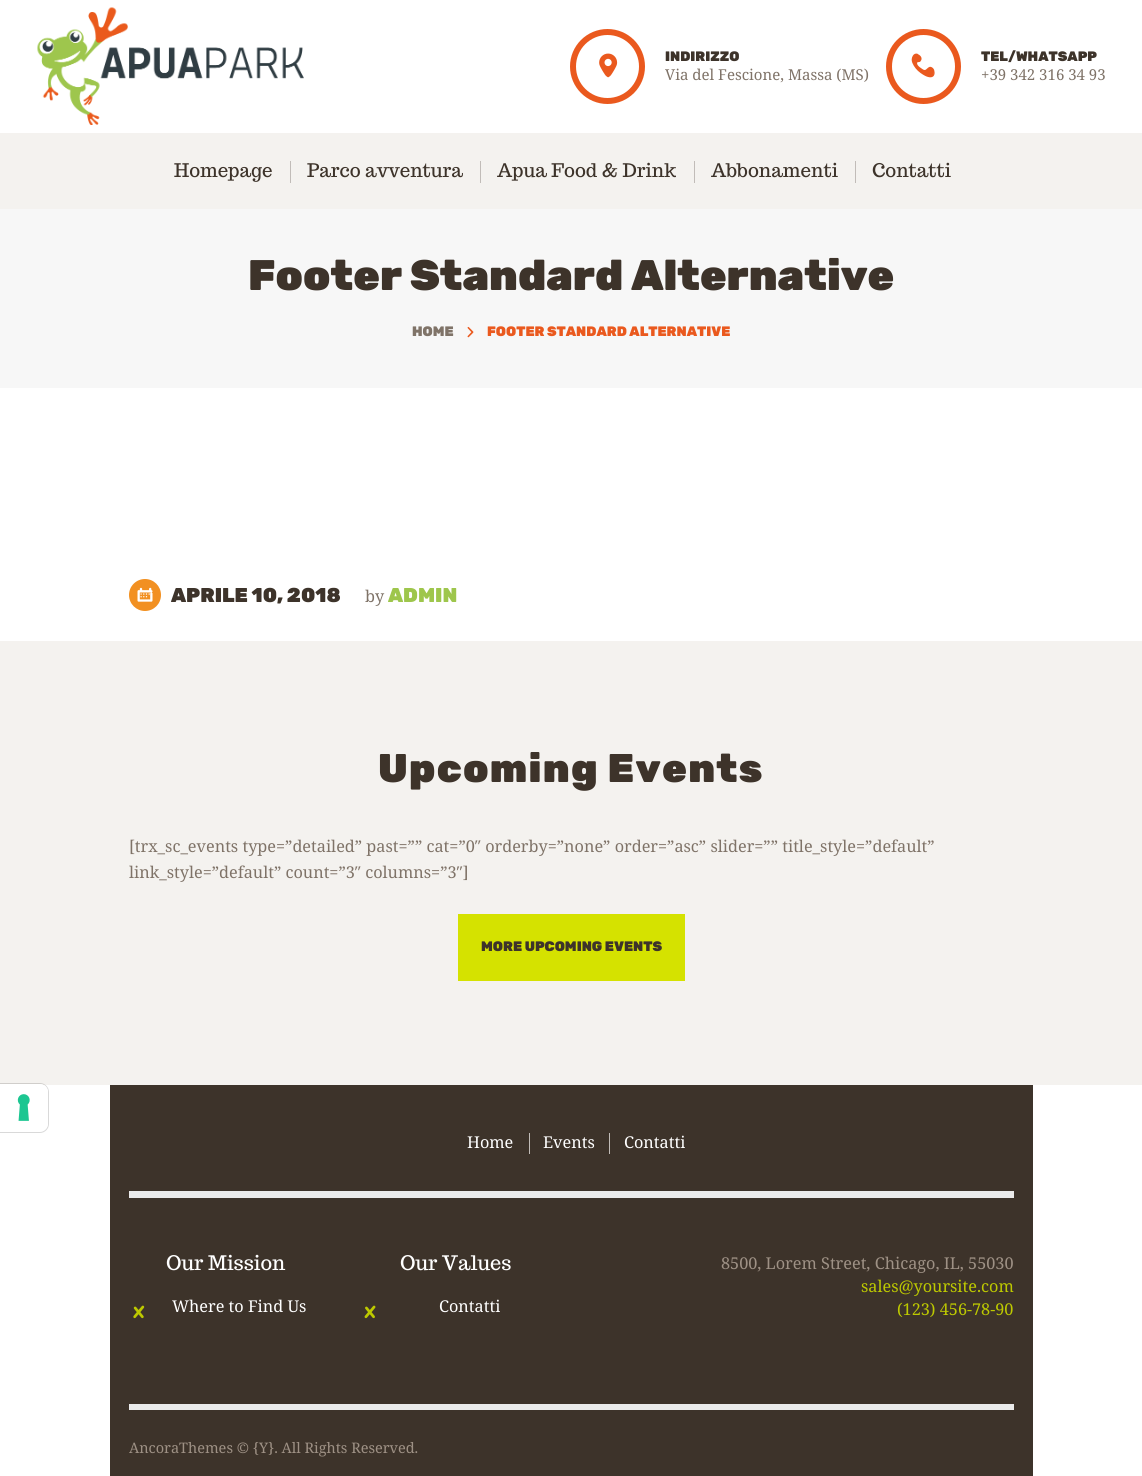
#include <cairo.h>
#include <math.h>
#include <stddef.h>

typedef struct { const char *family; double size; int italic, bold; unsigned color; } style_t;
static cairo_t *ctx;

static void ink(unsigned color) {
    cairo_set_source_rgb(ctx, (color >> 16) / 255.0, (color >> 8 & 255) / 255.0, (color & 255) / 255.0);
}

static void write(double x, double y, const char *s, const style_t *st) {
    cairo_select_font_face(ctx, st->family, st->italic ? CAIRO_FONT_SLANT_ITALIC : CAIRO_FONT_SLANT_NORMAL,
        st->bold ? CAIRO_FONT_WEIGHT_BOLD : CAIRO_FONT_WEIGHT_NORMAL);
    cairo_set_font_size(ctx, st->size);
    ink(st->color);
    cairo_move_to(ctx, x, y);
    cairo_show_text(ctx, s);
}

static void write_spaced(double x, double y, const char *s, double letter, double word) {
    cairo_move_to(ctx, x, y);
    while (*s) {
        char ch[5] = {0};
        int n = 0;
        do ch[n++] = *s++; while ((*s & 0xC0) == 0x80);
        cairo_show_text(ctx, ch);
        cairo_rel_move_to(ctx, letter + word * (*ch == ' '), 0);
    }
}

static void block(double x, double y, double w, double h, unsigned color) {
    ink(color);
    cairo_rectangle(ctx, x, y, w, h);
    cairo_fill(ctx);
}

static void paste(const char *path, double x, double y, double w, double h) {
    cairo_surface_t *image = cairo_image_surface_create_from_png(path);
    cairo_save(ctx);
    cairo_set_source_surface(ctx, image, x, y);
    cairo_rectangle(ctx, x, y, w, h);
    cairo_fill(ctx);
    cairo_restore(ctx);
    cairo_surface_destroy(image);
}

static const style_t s1 = {"Rubik Black", 13.7, 0, 0, 0x3d332a};
static const style_t s2 = {"Noto Serif", 15, 0, 0, 0x7f7368};
static const style_t s3 = {"Trocchi", 18.75, 0, 0, 0x3d332a};
static const style_t s4 = {"Rubik Black", 42.75, 0, 0, 0x3d332a};
static const style_t s5 = {"Rubik Black", 13.7, 0, 0, 0x7f7368};
static const style_t s6 = {"Rubik Black", 13.7, 0, 0, 0xea591e};
static const style_t s7 = {"Rubik Black", 20, 0, 0, 0x3d332a};
static const style_t s8 = {"Noto Serif", 16.25, 0, 0, 0x7f7368};
static const style_t s9 = {"Rubik Black", 20, 0, 0, 0x9ec64c};
static const style_t s10 = {"Rubik Black", 13.75, 0, 0, 0x3d332a};
static const style_t s11 = {"Noto Serif", 16.25, 0, 0, 0xffffff};
static const style_t s12 = {"Trocchi", 20, 0, 0, 0xffffff};
static const style_t s13 = {"Noto Serif", 16.25, 0, 0, 0x9e9185};
static const style_t s14 = {"Noto Serif", 16.25, 0, 0, 0xbdc900};
static const style_t s15 = {"Noto Serif", 14.5, 0, 0, 0x9e9185};

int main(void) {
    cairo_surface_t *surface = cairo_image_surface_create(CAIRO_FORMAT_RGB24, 1142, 1476);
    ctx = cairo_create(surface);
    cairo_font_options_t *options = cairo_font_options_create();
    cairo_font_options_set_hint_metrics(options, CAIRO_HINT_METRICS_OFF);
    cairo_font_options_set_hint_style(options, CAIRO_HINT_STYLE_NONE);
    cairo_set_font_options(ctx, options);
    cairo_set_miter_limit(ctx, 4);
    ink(0xffffff);
    cairo_paint(ctx);
    block(0, 641, 1142, 444, 0xf4f2ef);
    cairo_new_path(ctx);
    cairo_move_to(ctx, -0.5, 1083.5);
    cairo_line_to(ctx, 40, 1083.5);
    cairo_curve_to(ctx, 44.5, 1083.5, 48.5, 1087.5, 48.5, 1092);
    cairo_line_to(ctx, 48.5, 1124);
    cairo_curve_to(ctx, 48.5, 1128.5, 44.5, 1132.5, 40, 1132.5);
    cairo_line_to(ctx, -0.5, 1132.5);
    cairo_close_path(ctx);
    cairo_set_source_rgba(ctx, 0, 0, 0, 0.15);
    cairo_set_line_width(ctx, 1);
    cairo_stroke(ctx);
    ink(0xffffff);
    cairo_new_path(ctx);
    cairo_move_to(ctx, 0, 1084);
    cairo_line_to(ctx, 40, 1084);
    cairo_curve_to(ctx, 44.5, 1084, 48, 1087.5, 48, 1092);
    cairo_line_to(ctx, 48, 1123);
    cairo_curve_to(ctx, 48, 1127.5, 44.5, 1131, 40, 1131);
    cairo_line_to(ctx, 0, 1131);
    cairo_close_path(ctx);
    cairo_fill(ctx);
    paste("pic1.png", 17, 1094, 13, 27);
    paste("pic2.png", 37, 7, 267, 118);
    cairo_arc(ctx, 607.5, 66.5, 34.5, 0, 2 * M_PI);
    ink(0xea591e);
    cairo_set_line_width(ctx, 6);
    cairo_stroke(ctx);
    paste("pic3.png", 599, 53, 19, 25);
    write(665, 61, "INDIRIZZO", &s1);
    write(665, 80, "Via del Fescione, Massa (MS)", &s2);
    cairo_new_path(ctx);
    cairo_arc(ctx, 923.5, 66.5, 34.5, 0, 2 * M_PI);
    ink(0xea591e);
    cairo_stroke(ctx);
    paste("pic4.png", 911, 53, 24, 25);
    write(981, 61, "TEL/WHATSAPP", &s1);
    write(981, 80, "+39 342 316 34 93", &s2);
    block(0, 133, 1142, 76, 0xf4f2ef);
    write(174, 177, "Homepage", &s3);
    block(290, 161, 1, 22, 0xc1bcb8);
    write(307, 177, "Parco avventura", &s3);
    block(480, 161, 1, 22, 0xc1bcb8);
    write(497, 177, "Apua Food & Drink", &s3);
    block(694, 161, 1, 22, 0xc1bcb8);
    write(711, 177, "Abbonamenti", &s3);
    block(855, 161, 1, 22, 0xc1bcb8);
    write(872, 177, "Contatti", &s3);
    block(0, 209, 1142, 179, 0xf7f7f7);
    write(248, 290, "Footer Standard Alternative", &s4);
    write(412, 336, "HOME", &s5);
    paste("pic5.png", 467, 326, 7, 12);
    write(487, 336, "FOOTER STANDARD ALTERNATIVE", &s6);
    ink(0xf29021);
    cairo_new_path(ctx);
    cairo_arc(ctx, 145, 595, 16, 0, 2 * M_PI);
    cairo_fill(ctx);
    paste("pic6.png", 137, 587, 16, 15);
    write(171, 602, "APRILE 10, 2018", &s7);
    write(365, 602, "by", &s8);
    write(388, 602, "ADMIN", &s9);
    cairo_set_font_size(ctx, 40);
    ink(0x3d332a);
    write_spaced(378, 782, "Upcoming Events", 1.25, 0);
    write(129, 852, "[trx_sc_events type=”detailed” past=”” cat=”0″ orderby=”none” order=”asc” slider=”” title_style=”default”", &s8);
    write(129, 878, "link_style=”default” count=”3″ columns=”3″]", &s8);
    block(458, 914, 227, 67, 0xd5e200);
    write(481, 951, "MORE UPCOMING EVENTS", &s10);
    block(110, 1085, 923, 391, 0x3d332a);
    write(467, 1148, "Home", &s11);
    block(529, 1133, 1, 21, 0xc1bcb8);
    write(543, 1148, "Events", &s11);
    block(609, 1133, 1, 21, 0xc1bcb8);
    write(624, 1148, "Contatti", &s11);
    block(129, 1191, 885, 7, 0xebebeb);
    write(166, 1270, "Our Mission", &s12);
    paste("pic7.png", 133, 1305, 12, 14);
    write(172, 1312, "Where to Find Us", &s11);
    write(400, 1270, "Our Values", &s12);
    paste("pic8.png", 364, 1305, 12, 14);
    write(439, 1312, "Contatti", &s11);
    write(721, 1269, "8500, Lorem Street, Chicago, IL, 55030", &s13);
    write(861, 1292, "sales@yoursite.com", &s14);
    write(897, 1315, "(123) 456-78-90", &s14);
    block(129, 1404, 885, 6, 0xebebeb);
    write(129, 1453, "AncoraThemes © {Y}. All Rights Reserved.", &s15);
    cairo_surface_write_to_png(surface, "screenshot.png");
    cairo_font_options_destroy(options);
    cairo_destroy(ctx);
    cairo_surface_destroy(surface);
    return 0;
}
